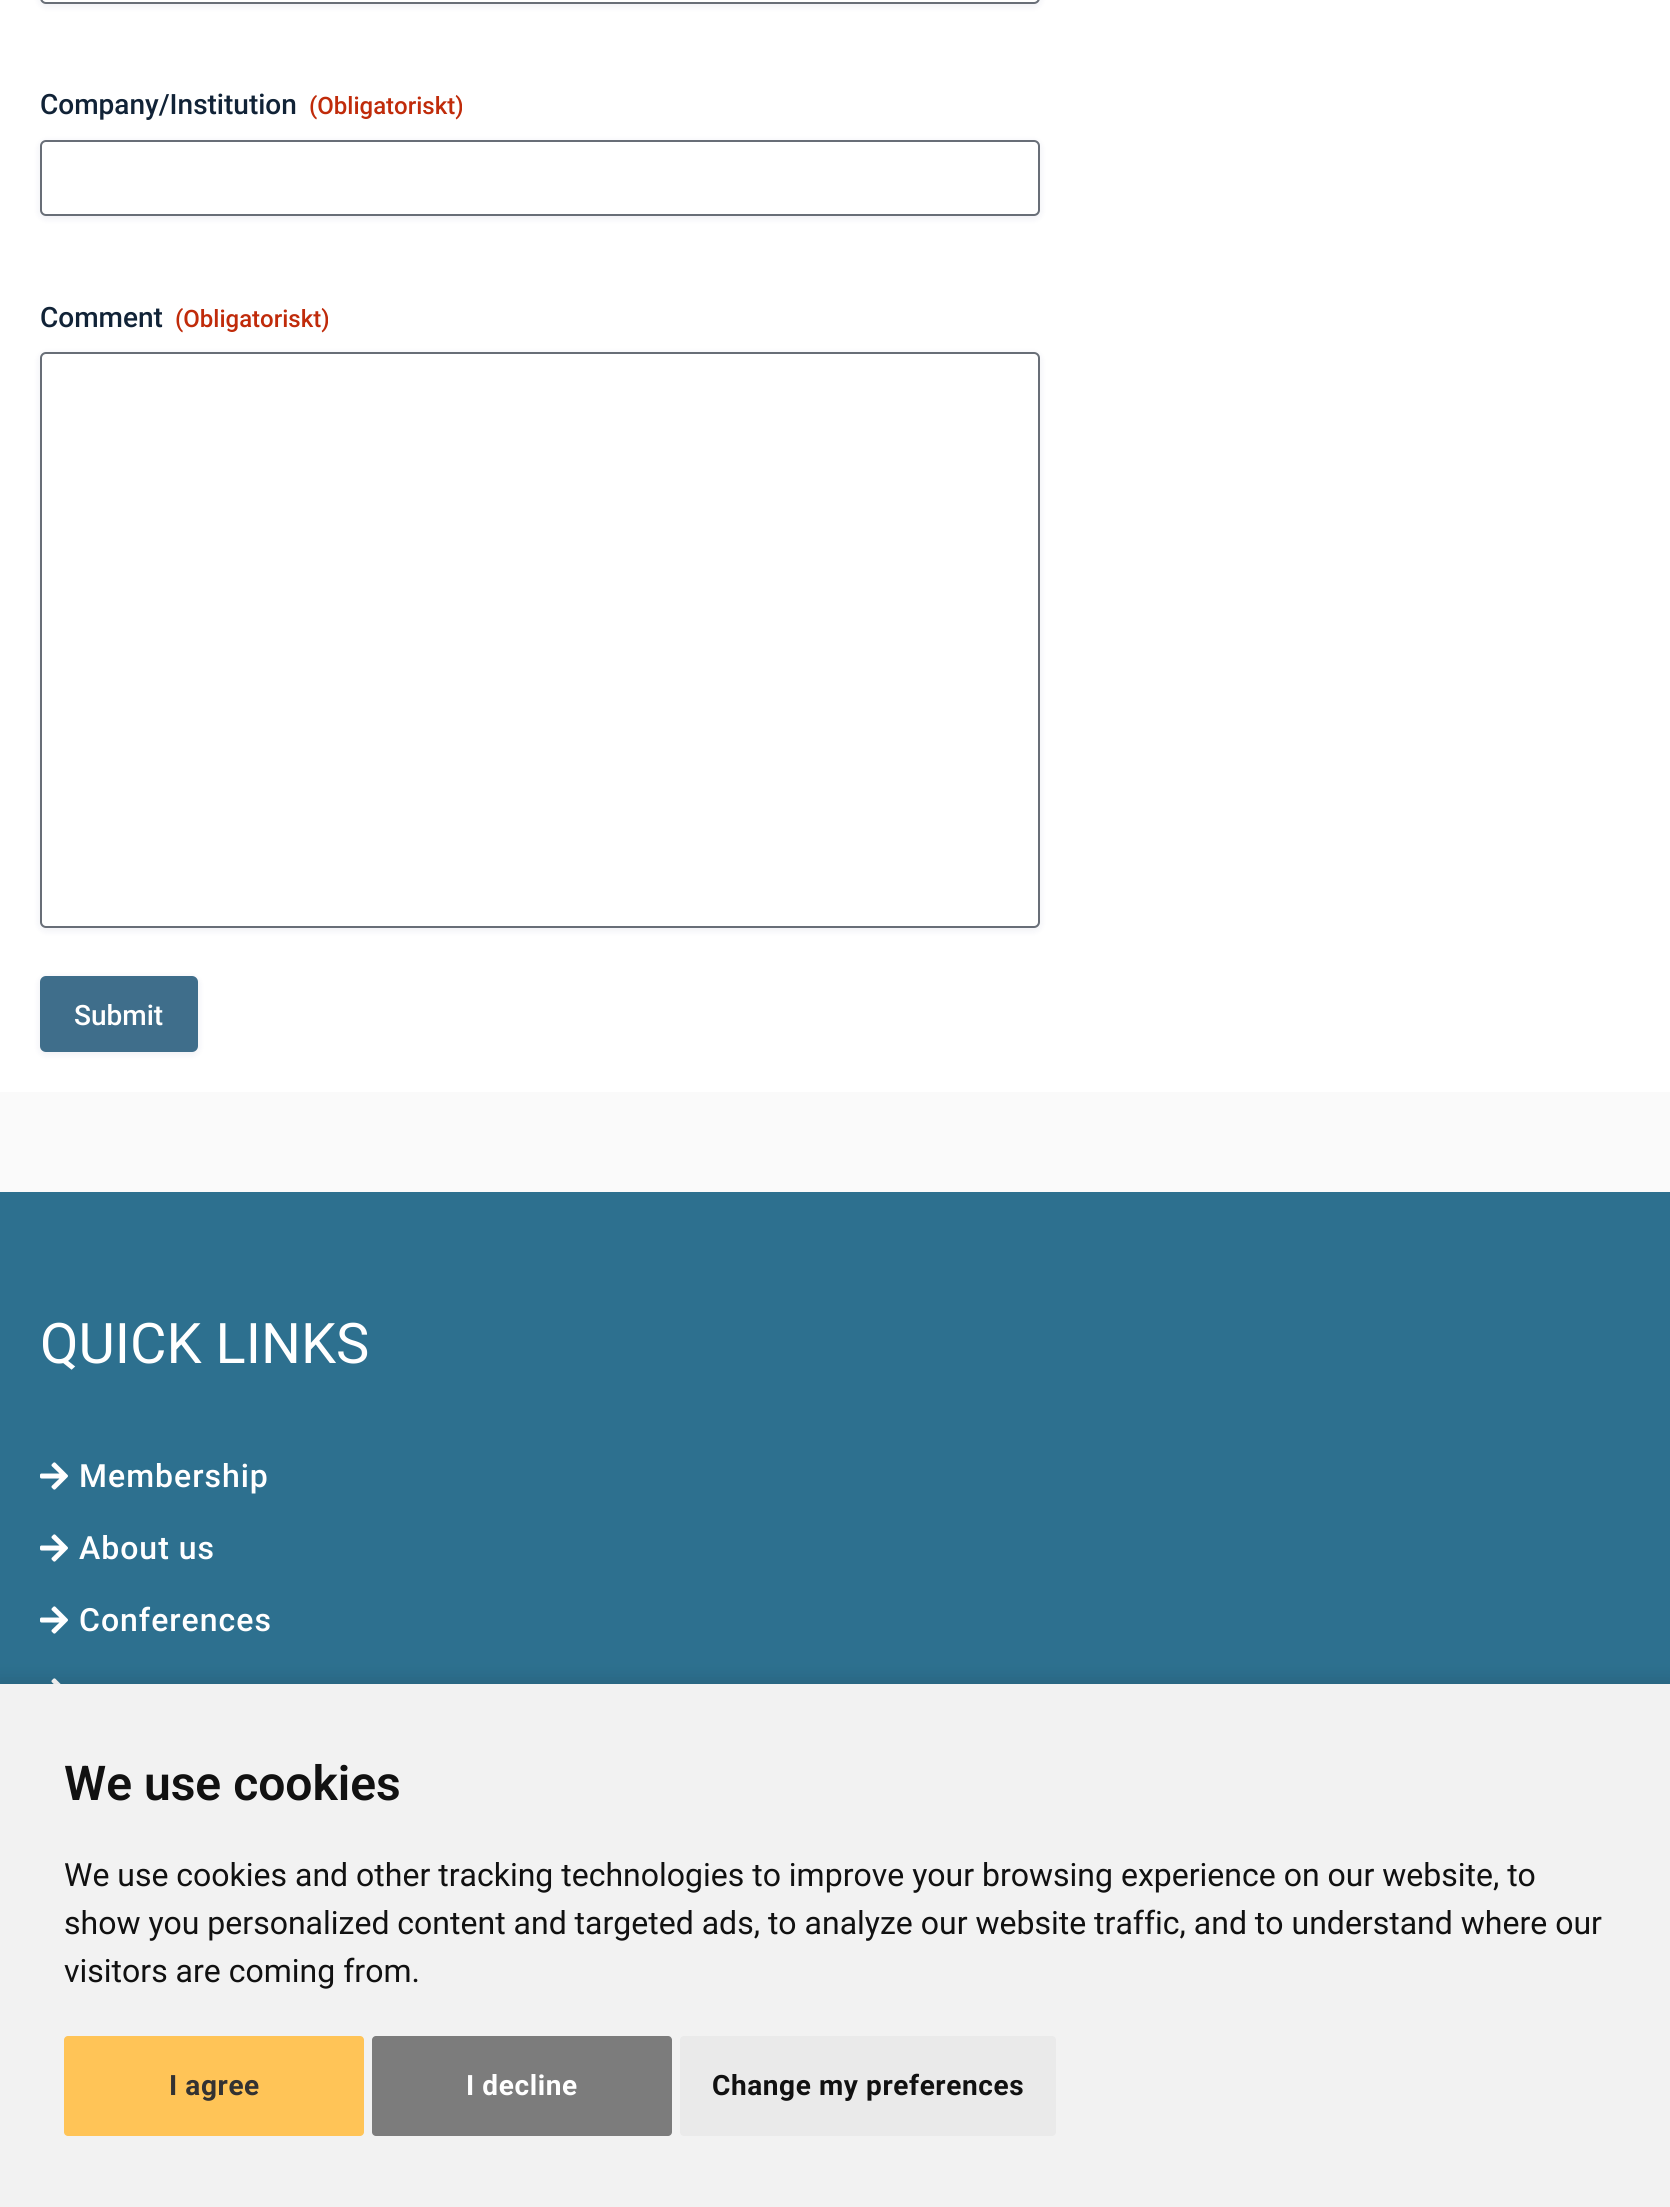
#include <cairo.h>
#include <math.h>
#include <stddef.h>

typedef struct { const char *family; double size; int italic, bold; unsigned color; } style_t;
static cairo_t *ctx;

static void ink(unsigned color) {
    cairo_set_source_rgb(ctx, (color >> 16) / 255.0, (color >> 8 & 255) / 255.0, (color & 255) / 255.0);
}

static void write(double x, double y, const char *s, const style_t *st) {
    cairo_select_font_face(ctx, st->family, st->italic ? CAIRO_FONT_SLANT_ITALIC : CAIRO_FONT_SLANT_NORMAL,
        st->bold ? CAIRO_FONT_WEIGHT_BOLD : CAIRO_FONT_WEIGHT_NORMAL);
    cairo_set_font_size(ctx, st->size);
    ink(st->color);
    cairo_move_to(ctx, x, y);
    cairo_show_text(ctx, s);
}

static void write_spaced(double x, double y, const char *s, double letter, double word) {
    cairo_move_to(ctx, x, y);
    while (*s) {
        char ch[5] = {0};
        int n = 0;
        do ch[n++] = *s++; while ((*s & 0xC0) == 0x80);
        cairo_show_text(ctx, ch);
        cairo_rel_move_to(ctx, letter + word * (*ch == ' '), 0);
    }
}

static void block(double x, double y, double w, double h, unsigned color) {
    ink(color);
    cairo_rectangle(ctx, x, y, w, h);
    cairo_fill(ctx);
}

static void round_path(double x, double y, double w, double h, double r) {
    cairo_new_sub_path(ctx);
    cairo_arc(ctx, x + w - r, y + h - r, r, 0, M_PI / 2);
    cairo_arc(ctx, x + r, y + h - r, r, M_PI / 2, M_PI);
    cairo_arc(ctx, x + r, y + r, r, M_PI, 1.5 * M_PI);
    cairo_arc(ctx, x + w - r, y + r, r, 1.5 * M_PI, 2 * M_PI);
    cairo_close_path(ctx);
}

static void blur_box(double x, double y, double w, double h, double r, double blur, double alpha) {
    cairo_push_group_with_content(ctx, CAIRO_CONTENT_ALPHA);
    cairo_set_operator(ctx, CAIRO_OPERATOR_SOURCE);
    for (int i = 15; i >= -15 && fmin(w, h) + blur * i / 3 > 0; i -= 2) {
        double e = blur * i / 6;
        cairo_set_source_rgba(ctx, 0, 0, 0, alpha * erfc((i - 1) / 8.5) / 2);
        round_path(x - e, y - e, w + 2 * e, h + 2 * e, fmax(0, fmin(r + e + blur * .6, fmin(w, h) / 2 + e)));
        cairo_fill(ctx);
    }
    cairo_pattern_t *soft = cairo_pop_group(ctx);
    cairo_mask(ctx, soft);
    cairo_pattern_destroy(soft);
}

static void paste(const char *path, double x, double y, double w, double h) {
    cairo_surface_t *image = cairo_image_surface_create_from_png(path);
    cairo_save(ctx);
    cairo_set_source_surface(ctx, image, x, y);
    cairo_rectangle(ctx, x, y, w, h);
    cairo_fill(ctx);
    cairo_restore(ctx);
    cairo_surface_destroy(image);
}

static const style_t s1 = {"Roboto Medium", 28, 0, 0, 0x112337};
static const style_t s2 = {"Roboto Medium", 24, 0, 0, 0xc02b0a};
static const style_t s3 = {"Roboto Medium", 28, 0, 0, 0xffffff};
static const style_t s4 = {"Roboto", 56, 0, 0, 0xffffff};
static const style_t s5 = {"Roboto SemiBold", 48, 0, 0, 0x111111};
static const style_t s6 = {"Roboto", 32, 0, 0, 0x111111};

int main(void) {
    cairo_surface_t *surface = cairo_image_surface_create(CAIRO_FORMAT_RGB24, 1670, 2207);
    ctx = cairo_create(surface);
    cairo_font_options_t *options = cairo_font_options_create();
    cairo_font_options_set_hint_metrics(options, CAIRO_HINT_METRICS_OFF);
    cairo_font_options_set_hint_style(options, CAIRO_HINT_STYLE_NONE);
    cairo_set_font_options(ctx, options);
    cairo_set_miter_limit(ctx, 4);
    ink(0xfafafa);
    cairo_paint(ctx);
    block(0, 0, 1670, 1092, 0xffffff);
    ink(0x121961);
    blur_box(40, -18, 1000, 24, 6, 4, 0.08);
    ink(0xffffff);
    round_path(41, -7, 998, 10, 5);
    cairo_fill_preserve(ctx);
    ink(0x686e77);
    cairo_stroke(ctx);
    write(40, 114, "Company/Institution", &s1);
    write(309, 114, "(Obligatoriskt)", &s2);
    ink(0x121961);
    blur_box(40, 142, 1000, 76, 6, 4, 0.08);
    ink(0xffffff);
    round_path(41, 141, 998, 74, 5);
    cairo_fill_preserve(ctx);
    ink(0x686e77);
    cairo_stroke(ctx);
    write(40, 327, "Comment", &s1);
    write(175, 327, "(Obligatoriskt)", &s2);
    ink(0x121961);
    blur_box(40, 354, 1000, 576, 6, 4, 0.08);
    ink(0xffffff);
    round_path(41, 353, 998, 574, 5);
    cairo_fill_preserve(ctx);
    ink(0x686e77);
    cairo_stroke(ctx);
    ink(0x121961);
    blur_box(40, 978, 158, 76, 6, 4, 0.08);
    ink(0x3f6e8b);
    round_path(40, 976, 158, 76, 6);
    cairo_fill(ctx);
    write(74, 1025, "Submit", &s3);
    block(0, 1192, 1670, 492, 0x2d708f);
    write(40, 1363, "QUICK LINKS", &s4);
    paste("pic1.png", 40, 1462, 28, 28);
    cairo_select_font_face(ctx, "Roboto Medium", CAIRO_FONT_SLANT_NORMAL, CAIRO_FONT_WEIGHT_NORMAL);
    cairo_set_font_size(ctx, 32);
    write_spaced(79, 1487, "Membership", 1, 0);
    paste("pic1.png", 40, 1534, 28, 28);
    write_spaced(79, 1559, "About us", 1, 0);
    paste("pic1.png", 40, 1606, 28, 28);
    write_spaced(79, 1631, "Conferences", 1, 0);
    paste("pic2.png", 51, 1678, 10, 6);
    ink(0x000000);
    blur_box(-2, 1682, 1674, 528, 0, 10, 0.15);
    block(0, 1684, 1670, 523, 0xf2f2f2);
    write(64, 1800, "We use cookies", &s5);
    write(64, 1886, "We use cookies and other tracking technologies to improve your browsing experience on our website, to", &s6);
    write(64, 1934, "show you personalized content and targeted ads, to analyze our website traffic, and to understand where our", &s6);
    write(64, 1982, "visitors are coming from.", &s6);
    ink(0xffc457);
    round_path(64, 2036, 300, 100, 4);
    cairo_fill(ctx);
    cairo_select_font_face(ctx, "Roboto", CAIRO_FONT_SLANT_NORMAL, CAIRO_FONT_WEIGHT_BOLD);
    cairo_set_font_size(ctx, 28);
    ink(0x333232);
    write_spaced(169, 2095, "I agree", 0.6, 0);
    ink(0x7c7c7c);
    round_path(372, 2036, 300, 100, 4);
    cairo_fill(ctx);
    ink(0xffffff);
    write_spaced(466, 2095, "I decline", 0.6, 0);
    ink(0xeaeaea);
    round_path(680, 2036, 376, 100, 4);
    cairo_fill(ctx);
    ink(0x111111);
    write_spaced(712, 2095, "Change my preferences", 0.6, 0);
    cairo_surface_write_to_png(surface, "screenshot.png");
    cairo_font_options_destroy(options);
    cairo_destroy(ctx);
    cairo_surface_destroy(surface);
    return 0;
}
